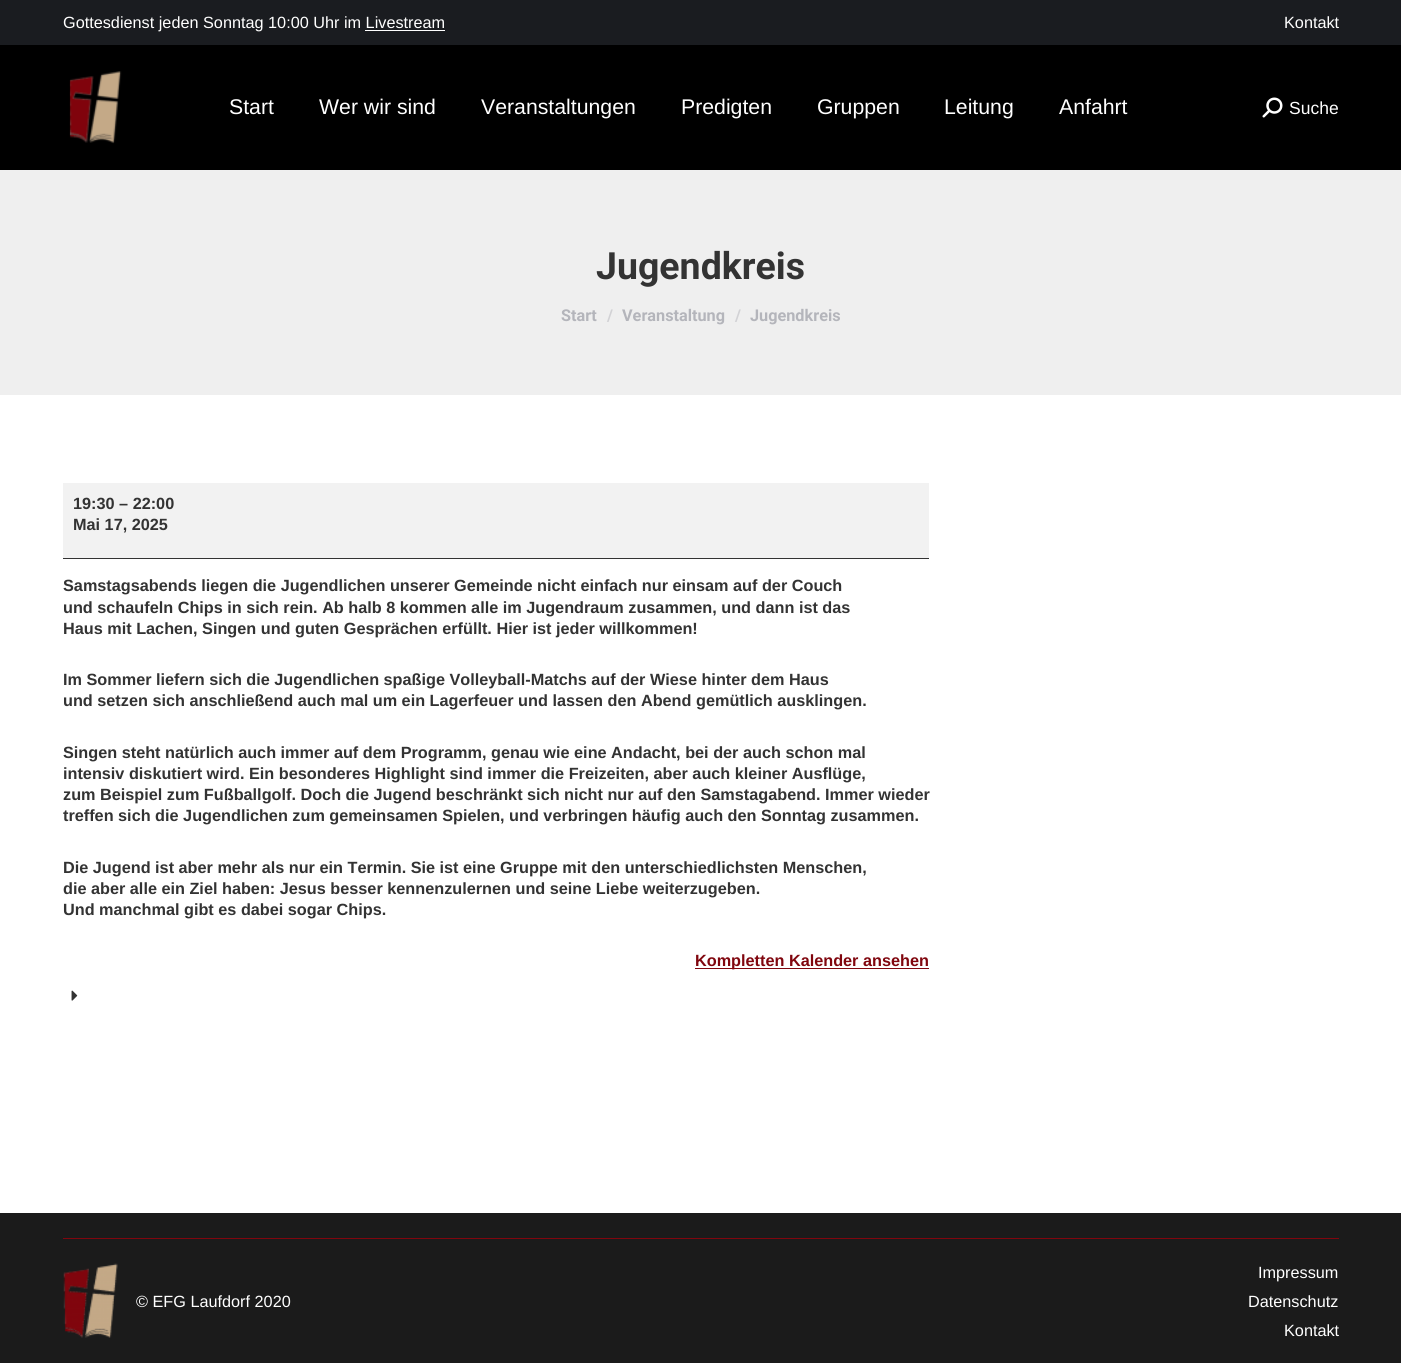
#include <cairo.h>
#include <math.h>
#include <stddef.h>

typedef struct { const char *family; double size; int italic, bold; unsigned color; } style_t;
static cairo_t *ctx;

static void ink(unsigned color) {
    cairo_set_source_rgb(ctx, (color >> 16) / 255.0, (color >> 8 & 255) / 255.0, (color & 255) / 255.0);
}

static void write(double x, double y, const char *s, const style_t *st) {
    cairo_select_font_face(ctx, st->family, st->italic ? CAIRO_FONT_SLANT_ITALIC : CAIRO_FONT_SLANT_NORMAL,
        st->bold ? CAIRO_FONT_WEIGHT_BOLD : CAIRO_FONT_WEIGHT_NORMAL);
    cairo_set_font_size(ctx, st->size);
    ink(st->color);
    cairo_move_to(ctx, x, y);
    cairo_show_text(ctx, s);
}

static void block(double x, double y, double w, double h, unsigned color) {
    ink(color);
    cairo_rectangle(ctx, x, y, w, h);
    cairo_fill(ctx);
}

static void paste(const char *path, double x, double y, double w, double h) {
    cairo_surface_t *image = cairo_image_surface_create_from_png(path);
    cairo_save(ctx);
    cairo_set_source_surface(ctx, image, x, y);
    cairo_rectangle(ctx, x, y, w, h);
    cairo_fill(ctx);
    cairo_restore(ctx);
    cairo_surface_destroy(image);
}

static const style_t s1 = {"Liberation Sans", 16.25, 0, 0, 0xffffff};
static const style_t s2 = {"Liberation Sans", 21.25, 0, 0, 0xffffff};
static const style_t s3 = {"Liberation Sans", 17.5, 0, 0, 0xffffff};
static const style_t s4 = {"Roboto", 37.5, 0, 1, 0x333333};
static const style_t s5 = {"Roboto", 16.25, 0, 1, 0xb4b5bb};
static const style_t s6 = {"Roboto", 16.25, 0, 1, 0xd2d2d5};
static const style_t s7 = {"Liberation Sans", 16.25, 0, 1, 0x333333};
static const style_t s8 = {"Liberation Sans", 16.25, 0, 1, 0x80060e};

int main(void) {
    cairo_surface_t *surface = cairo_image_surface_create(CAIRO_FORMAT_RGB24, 1401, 1363);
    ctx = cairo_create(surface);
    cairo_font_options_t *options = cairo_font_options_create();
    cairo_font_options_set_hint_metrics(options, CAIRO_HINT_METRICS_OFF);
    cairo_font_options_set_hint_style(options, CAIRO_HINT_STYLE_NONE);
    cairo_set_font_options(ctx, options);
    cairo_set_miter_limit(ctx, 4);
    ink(0x1b1b1b);
    cairo_paint(ctx);
    block(0, 45, 1401, 125, 0x000000);
    block(0, 0, 1401, 45, 0x1a1c20);
    write(63, 28, "Gottesdienst jeden Sonntag 10:00 Uhr im Livestream", &s1);
    block(365, 30, 80, 1, 0xffffff);
    write(1284, 28, "Kontakt", &s1);
    paste("pic1.png", 69, 71, 53, 73);
    write(229, 114, "Start", &s2);
    write(319, 114, "Wer wir sind", &s2);
    write(481, 114, "Veranstaltungen", &s2);
    write(681, 114, "Predigten", &s2);
    write(817, 114, "Gruppen", &s2);
    write(944, 114, "Leitung", &s2);
    write(1059, 114, "Anfahrt", &s2);
    paste("pic2.png", 1262, 97, 21, 21);
    write(1289, 114, "Suche", &s3);
    block(0, 395, 1401, 818, 0xffffff);
    block(0, 170, 1401, 225, 0xefefef);
    write(596, 279, "Jugendkreis", &s4);
    write(561, 321, "Start", &s5);
    write(607, 321, "/", &s6);
    write(622, 321, "Veranstaltung", &s5);
    write(735, 321, "/", &s6);
    write(750, 321, "Jugendkreis", &s5);
    block(63, 483, 866, 75, 0xf2f2f2);
    block(63, 558, 866, 1, 0x333333);
    write(73, 509, "19:30 – 22:00", &s7);
    write(73, 530, "Mai 17, 2025", &s7);
    write(63, 591, "Samstagsabends liegen die Jugendlichen unserer Gemeinde nicht einfach nur einsam auf der Couch", &s7);
    write(63, 613, "und schaufeln Chips in sich rein. Ab halb 8 kommen alle im Jugendraum zusammen, und dann ist das", &s7);
    write(63, 634, "Haus mit Lachen, Singen und guten Gesprächen erfüllt. Hier ist jeder willkommen!", &s7);
    write(63, 685, "Im Sommer liefern sich die Jugendlichen spaßige Volleyball-Matchs auf der Wiese hinter dem Haus", &s7);
    write(63, 706, "und setzen sich anschließend auch mal um ein Lagerfeuer und lassen den Abend gemütlich ausklingen.", &s7);
    write(63, 758, "Singen steht natürlich auch immer auf dem Programm, genau wie eine Andacht, bei der auch schon mal", &s7);
    write(63, 779, "intensiv diskutiert wird. Ein besonderes Highlight sind immer die Freizeiten, aber auch kleiner Ausflüge,", &s7);
    write(63, 800, "zum Beispiel zum Fußballgolf. Doch die Jugend beschränkt sich nicht nur auf den Samstagabend. Immer wieder", &s7);
    write(63, 821, "treffen sich die Jugendlichen zum gemeinsamen Spielen, und verbringen häufig auch den Sonntag zusammen.", &s7);
    write(63, 873, "Die Jugend ist aber mehr als nur ein Termin. Sie ist eine Gruppe mit den unterschiedlichsten Menschen,", &s7);
    write(63, 894, "die aber alle ein Ziel haben: Jesus besser kennenzulernen und seine Liebe weiterzugeben.", &s7);
    write(63, 915, "Und manchmal gibt es dabei sogar Chips.", &s7);
    block(695, 968, 234, 1, 0x80060e);
    write(695, 966, "Kompletten Kalender ansehen", &s8);
    paste("pic3.png", 71, 990, 7, 11);
    block(63, 1238, 1276, 1, 0x80060e);
    paste("pic4.png", 63, 1263, 55, 75);
    write(136, 1307, "© EFG Laufdorf 2020", &s1);
    write(1258, 1278, "Impressum", &s1);
    write(1248, 1307, "Datenschutz", &s1);
    write(1284, 1336, "Kontakt", &s1);
    cairo_surface_write_to_png(surface, "screenshot.png");
    cairo_font_options_destroy(options);
    cairo_destroy(ctx);
    cairo_surface_destroy(surface);
    return 0;
}
